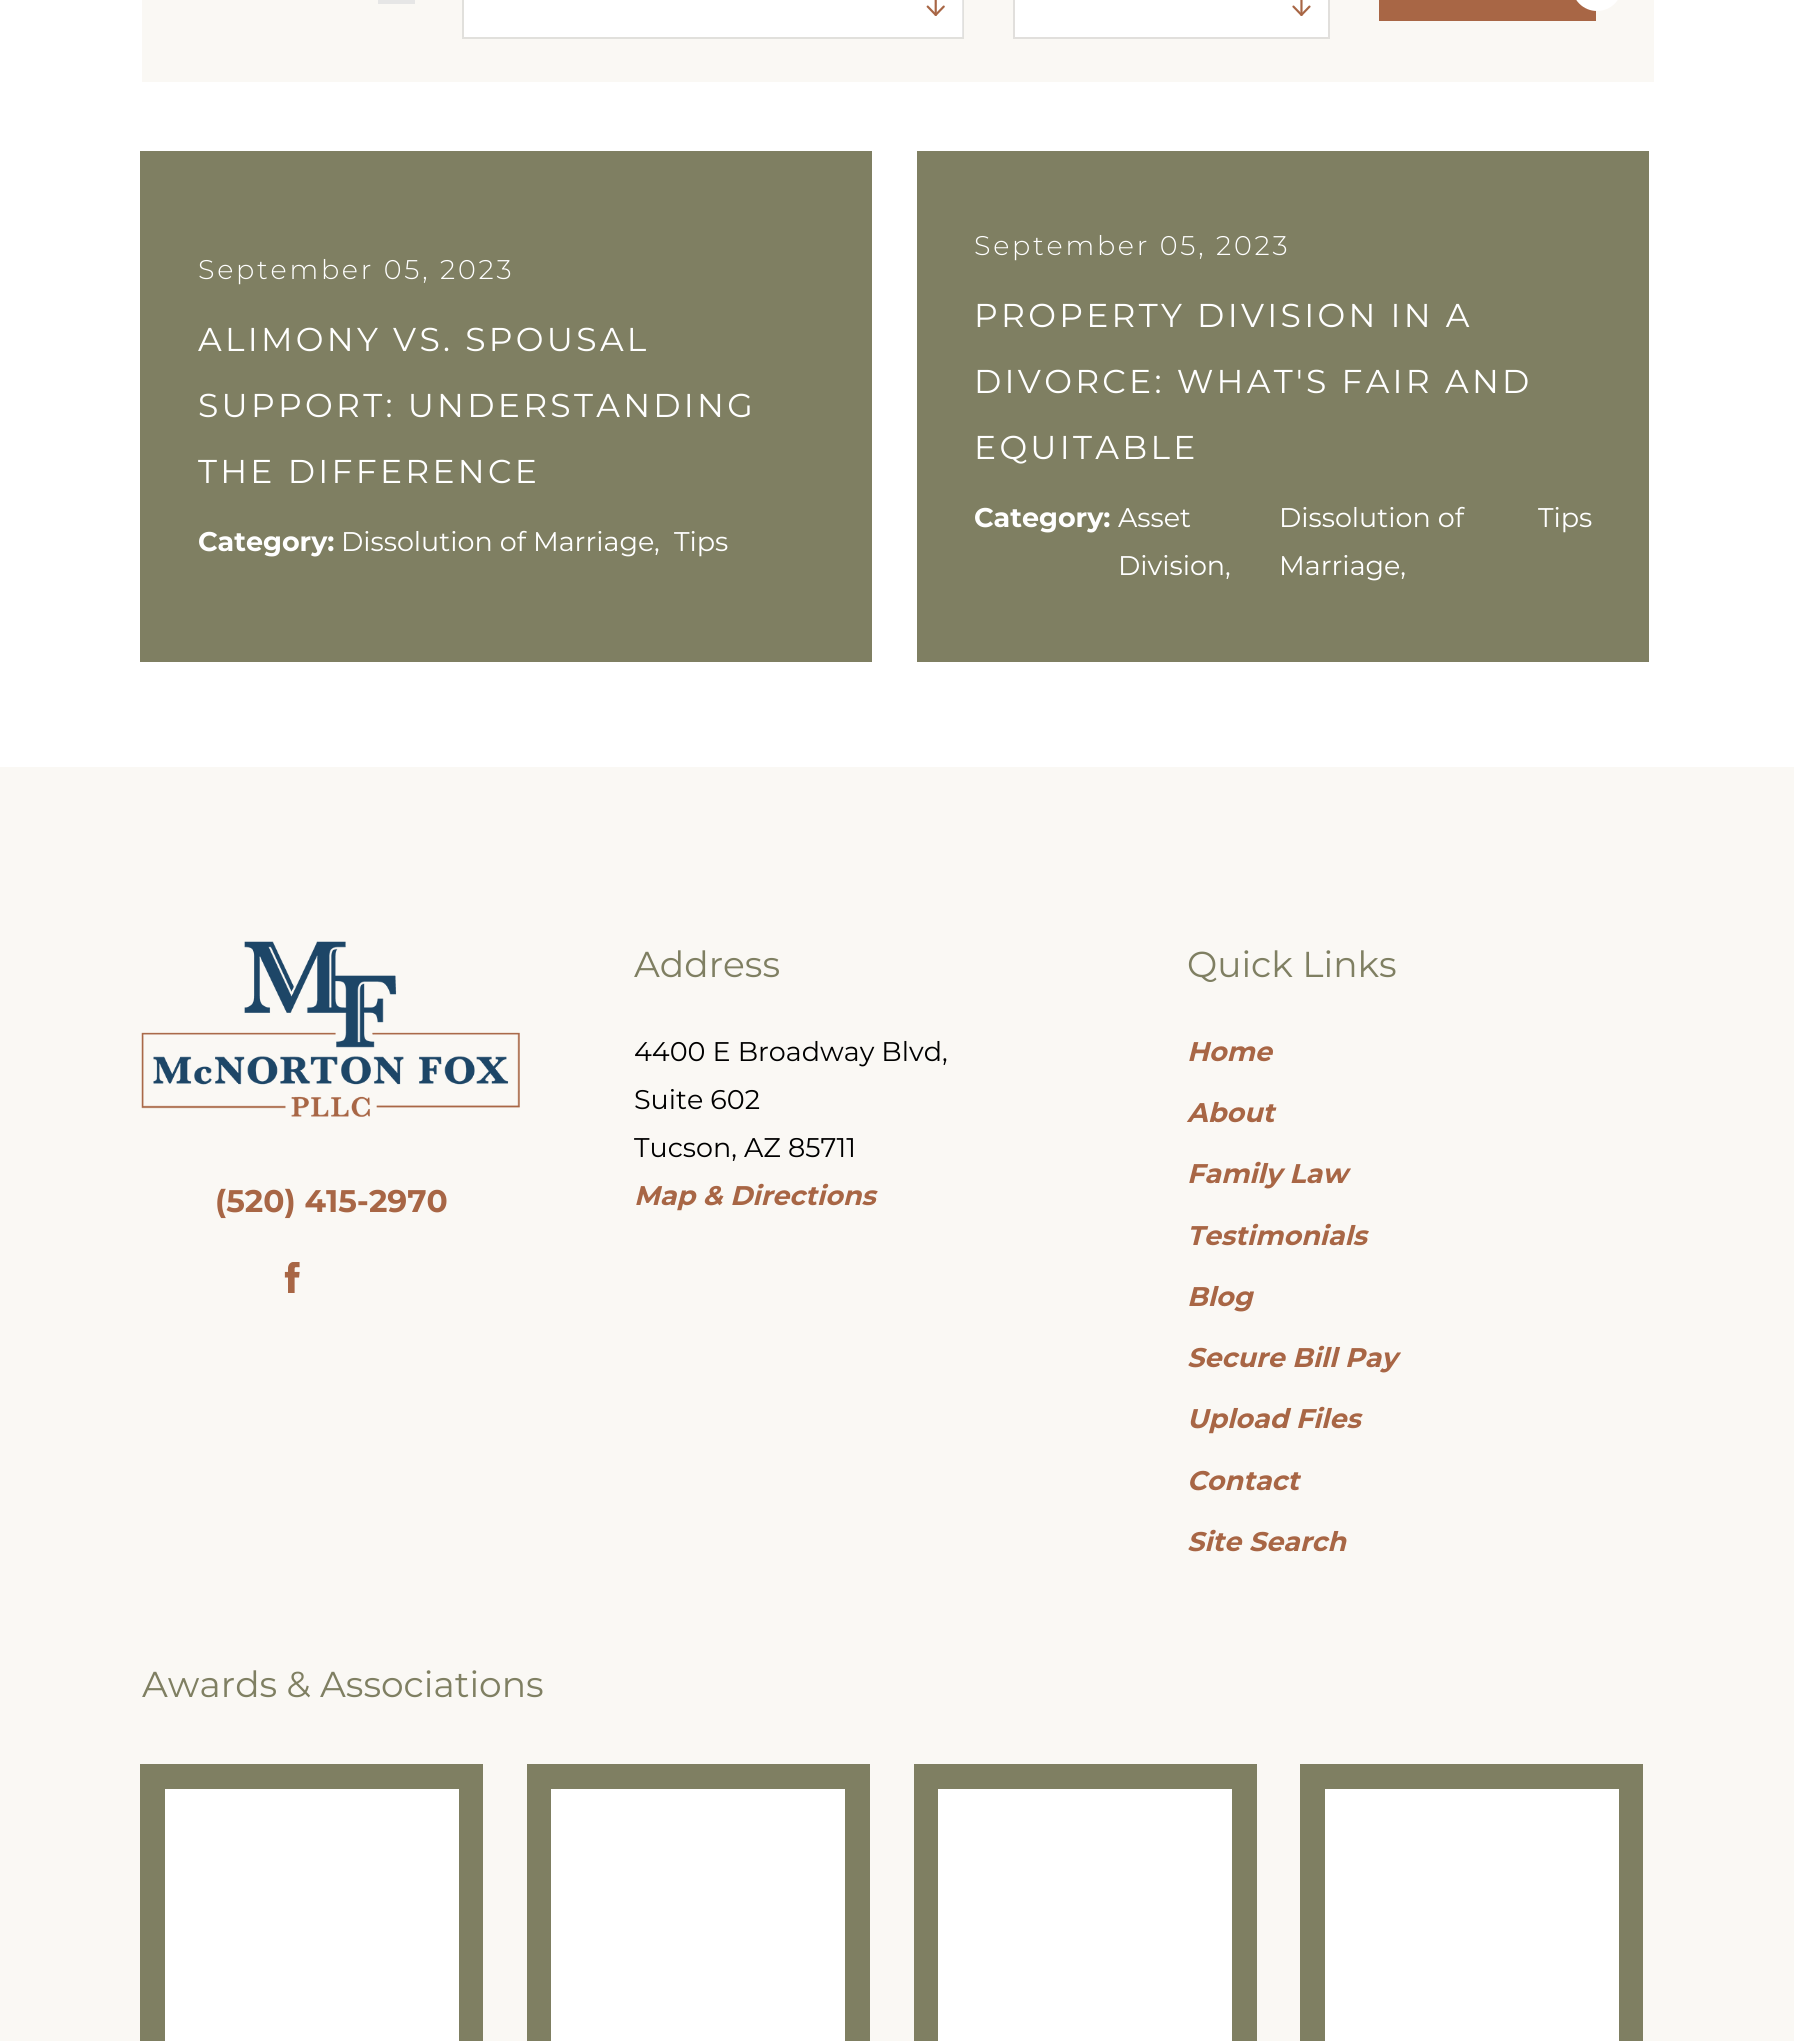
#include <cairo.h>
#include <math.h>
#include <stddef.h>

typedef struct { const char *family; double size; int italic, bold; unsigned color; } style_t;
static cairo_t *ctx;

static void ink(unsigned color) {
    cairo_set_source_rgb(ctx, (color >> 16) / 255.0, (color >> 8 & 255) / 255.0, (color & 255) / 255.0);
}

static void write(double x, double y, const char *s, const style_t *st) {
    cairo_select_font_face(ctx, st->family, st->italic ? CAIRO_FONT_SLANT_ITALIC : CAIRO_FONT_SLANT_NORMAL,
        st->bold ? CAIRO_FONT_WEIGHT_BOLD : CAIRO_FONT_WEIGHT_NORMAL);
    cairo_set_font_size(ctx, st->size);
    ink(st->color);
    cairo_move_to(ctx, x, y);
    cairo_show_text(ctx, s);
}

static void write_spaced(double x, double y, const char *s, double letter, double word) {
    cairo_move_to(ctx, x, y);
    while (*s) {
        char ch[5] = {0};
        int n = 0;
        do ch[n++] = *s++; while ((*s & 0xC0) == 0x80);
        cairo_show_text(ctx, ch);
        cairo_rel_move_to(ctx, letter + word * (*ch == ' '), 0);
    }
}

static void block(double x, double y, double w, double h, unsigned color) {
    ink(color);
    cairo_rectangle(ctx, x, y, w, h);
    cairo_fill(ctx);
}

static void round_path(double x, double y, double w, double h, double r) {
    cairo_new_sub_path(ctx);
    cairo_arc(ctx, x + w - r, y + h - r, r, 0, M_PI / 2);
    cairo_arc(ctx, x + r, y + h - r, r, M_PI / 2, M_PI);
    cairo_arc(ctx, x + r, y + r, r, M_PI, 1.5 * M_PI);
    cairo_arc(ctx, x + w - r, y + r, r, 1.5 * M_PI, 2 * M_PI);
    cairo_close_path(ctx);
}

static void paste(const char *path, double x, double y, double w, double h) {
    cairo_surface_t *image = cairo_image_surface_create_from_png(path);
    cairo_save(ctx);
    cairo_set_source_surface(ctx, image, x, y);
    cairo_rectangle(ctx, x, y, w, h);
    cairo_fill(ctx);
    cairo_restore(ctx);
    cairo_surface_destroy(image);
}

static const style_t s1 = {"Montserrat", 27, 0, 1, 0xffffff};
static const style_t s2 = {"Montserrat", 27, 0, 0, 0xffffff};
static const style_t s3 = {"Montserrat", 31.25, 0, 1, 0xa86645};
static const style_t s4 = {"Montserrat", 36, 0, 0, 0x7f7f62};
static const style_t s5 = {"Montserrat", 27, 0, 0, 0x000000};
static const style_t s6 = {"Montserrat", 27, 1, 1, 0xa86645};

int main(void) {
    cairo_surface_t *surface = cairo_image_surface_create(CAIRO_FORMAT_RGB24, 1794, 2041);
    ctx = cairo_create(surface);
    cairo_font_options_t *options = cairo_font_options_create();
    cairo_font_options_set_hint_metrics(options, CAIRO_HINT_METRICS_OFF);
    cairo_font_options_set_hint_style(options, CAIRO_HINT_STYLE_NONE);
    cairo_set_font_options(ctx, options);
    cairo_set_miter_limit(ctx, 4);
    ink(0xffffff);
    cairo_paint(ctx);
    block(142, 0, 1512, 82, 0xfaf8f4);
    cairo_rectangle(ctx, 380, -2, 33, 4);
    ink(0xe6e6e6);
    cairo_set_line_width(ctx, 4);
    cairo_stroke(ctx);
    block(464, 0, 499, 37, 0xffffff);
    cairo_rectangle(ctx, 463, -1, 500, 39);
    cairo_set_source_rgba(ctx, 0, 0, 0, 0.1);
    cairo_set_line_width(ctx, 2);
    cairo_stroke(ctx);
    paste("pic1.png", 926, 0, 19, 16);
    ink(0xffffff);
    cairo_rectangle(ctx, 1014, -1, 315, 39);
    cairo_fill_preserve(ctx);
    ink(0xe1dfdc);
    cairo_stroke(ctx);
    paste("pic2.png", 1292, 0, 19, 16);
    block(1379, 0, 217, 21, 0xa86645);
    ink(0xffffff);
    round_path(1572, -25, 50, 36, 25);
    cairo_fill(ctx);
    block(140, 151, 732, 511, 0x7f7f62);
    cairo_select_font_face(ctx, "Montserrat Light", CAIRO_FONT_SLANT_NORMAL, CAIRO_FONT_WEIGHT_NORMAL);
    cairo_set_font_size(ctx, 27);
    ink(0xffffff);
    write_spaced(198, 279, "September 05, 2023", 2.75, 0);
    cairo_select_font_face(ctx, "Montserrat", CAIRO_FONT_SLANT_NORMAL, CAIRO_FONT_WEIGHT_NORMAL);
    cairo_set_font_size(ctx, 33);
    write_spaced(198, 351, "ALIMONY VS. SPOUSAL", 3.3, 0);
    write_spaced(198, 417, "SUPPORT: UNDERSTANDING", 3.3, 0);
    write_spaced(198, 483, "THE DIFFERENCE", 3.3, 0);
    write(198, 551, "Category:", &s1);
    write(341, 551, "Dissolution of Marriage", &s2);
    write(654, 551, ",", &s2);
    write(674, 551, "Tips", &s2);
    block(917, 151, 732, 511, 0x7f7f62);
    cairo_select_font_face(ctx, "Montserrat Light", CAIRO_FONT_SLANT_NORMAL, CAIRO_FONT_WEIGHT_NORMAL);
    ink(0xffffff);
    write_spaced(974, 255, "September 05, 2023", 2.75, 0);
    cairo_select_font_face(ctx, "Montserrat", CAIRO_FONT_SLANT_NORMAL, CAIRO_FONT_WEIGHT_NORMAL);
    cairo_set_font_size(ctx, 33);
    write_spaced(974, 327, "PROPERTY DIVISION IN A", 3.3, 0);
    write_spaced(974, 393, "DIVORCE: WHAT'S FAIR AND", 3.3, 0);
    write_spaced(974, 459, "EQUITABLE", 3.3, 0);
    write(974, 527, "Category:", &s1);
    write(1118, 527, "Asset", &s2);
    write(1118, 575, "Division,", &s2);
    write(1279, 527, "Dissolution of", &s2);
    write(1279, 575, "Marriage,", &s2);
    write(1538, 527, "Tips", &s2);
    block(0, 767, 1794, 1274, 0xfaf8f4);
    paste("pic3.png", 141, 941, 379, 176);
    write(215, 1212, "(520) 415-2970", &s3);
    paste("pic4.png", 284, 1262, 16, 31);
    write(634, 977, "Address", &s4);
    write(634, 1061, "4400 E Broadway Blvd,", &s5);
    write(634, 1109, "Suite 602", &s5);
    write(634, 1157, "Tucson, AZ 85711", &s5);
    write(634, 1205, "Map & Directions", &s6);
    write(1187, 977, "Quick Links", &s4);
    write(1187, 1061, "Home", &s6);
    write(1187, 1122, "About", &s6);
    write(1187, 1183, "Family Law", &s6);
    write(1187, 1245, "Testimonials", &s6);
    write(1187, 1306, "Blog", &s6);
    write(1187, 1367, "Secure Bill Pay", &s6);
    write(1187, 1428, "Upload Files", &s6);
    write(1187, 1490, "Contact", &s6);
    write(1187, 1551, "Site Search", &s6);
    write(142, 1697, "Awards & Associations", &s4);
    block(140, 1764, 343, 277, 0x7f7f62);
    block(165, 1789, 294, 252, 0xffffff);
    block(527, 1764, 343, 277, 0x7f7f62);
    block(551, 1789, 294, 252, 0xffffff);
    block(914, 1764, 343, 277, 0x7f7f62);
    block(938, 1789, 294, 252, 0xffffff);
    block(1300, 1764, 343, 277, 0x7f7f62);
    block(1325, 1789, 294, 252, 0xffffff);
    cairo_surface_write_to_png(surface, "screenshot.png");
    cairo_font_options_destroy(options);
    cairo_destroy(ctx);
    cairo_surface_destroy(surface);
    return 0;
}
